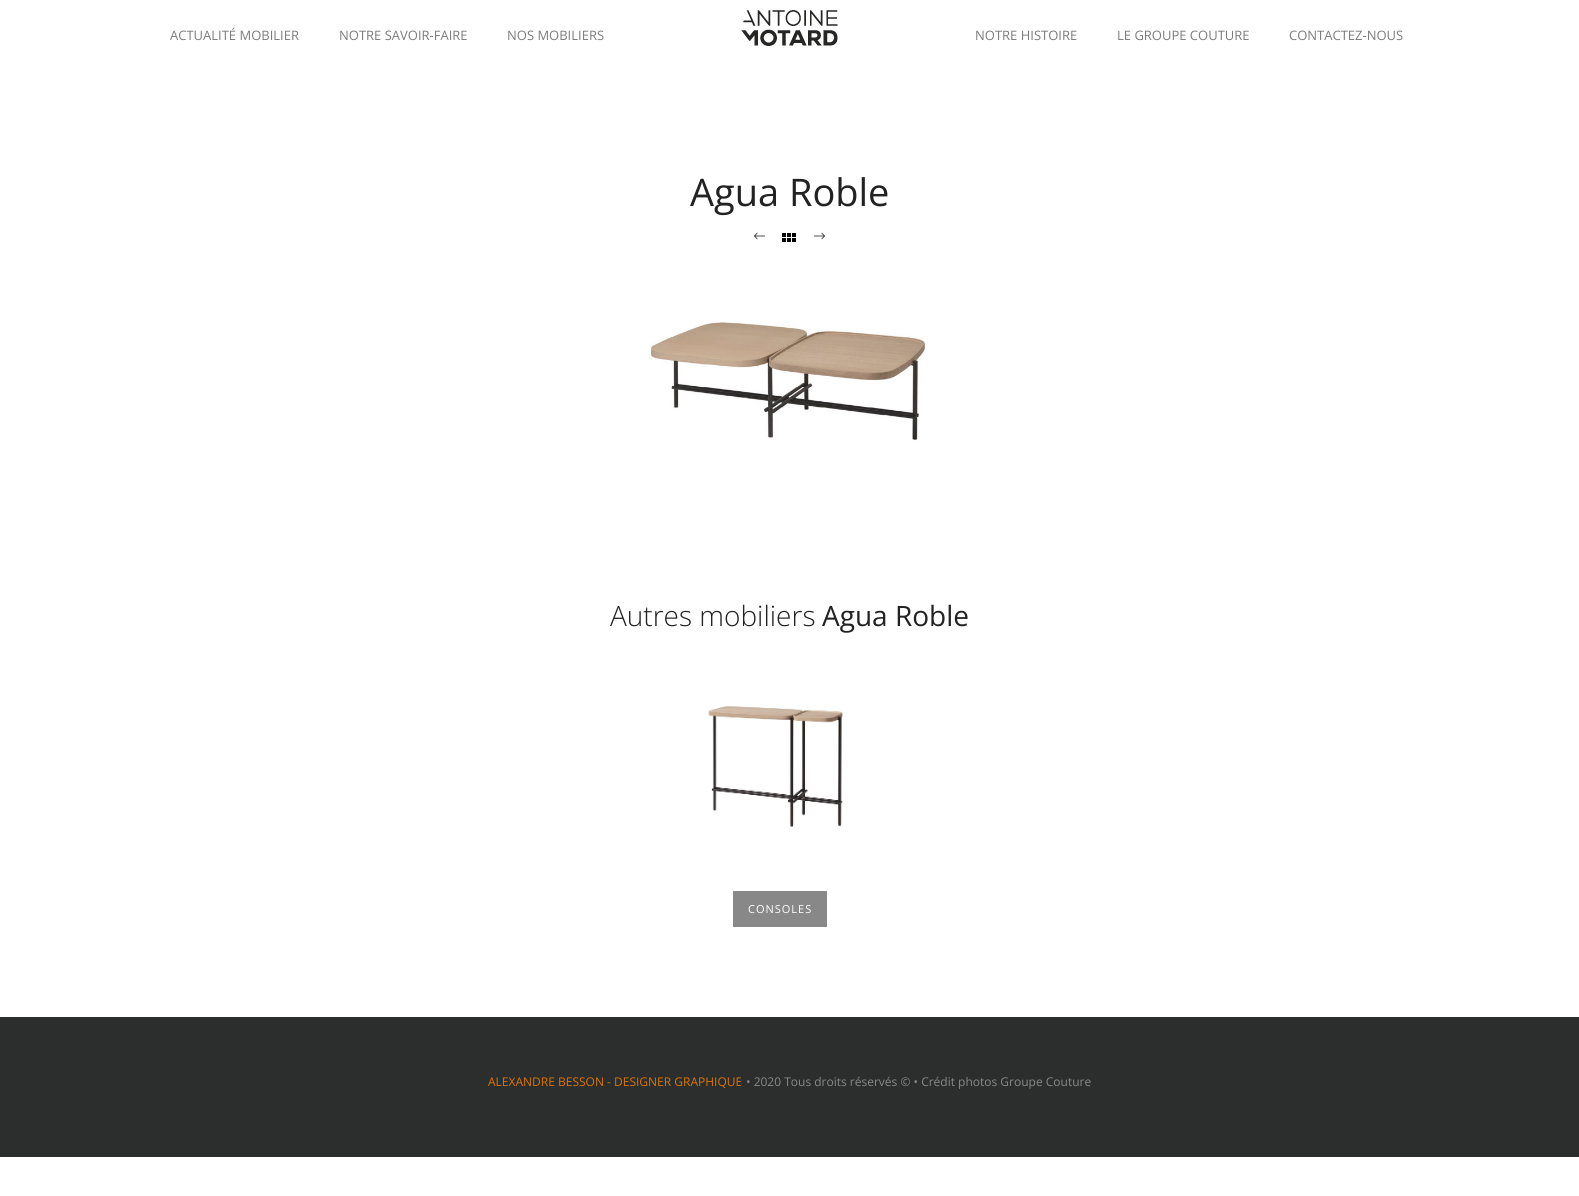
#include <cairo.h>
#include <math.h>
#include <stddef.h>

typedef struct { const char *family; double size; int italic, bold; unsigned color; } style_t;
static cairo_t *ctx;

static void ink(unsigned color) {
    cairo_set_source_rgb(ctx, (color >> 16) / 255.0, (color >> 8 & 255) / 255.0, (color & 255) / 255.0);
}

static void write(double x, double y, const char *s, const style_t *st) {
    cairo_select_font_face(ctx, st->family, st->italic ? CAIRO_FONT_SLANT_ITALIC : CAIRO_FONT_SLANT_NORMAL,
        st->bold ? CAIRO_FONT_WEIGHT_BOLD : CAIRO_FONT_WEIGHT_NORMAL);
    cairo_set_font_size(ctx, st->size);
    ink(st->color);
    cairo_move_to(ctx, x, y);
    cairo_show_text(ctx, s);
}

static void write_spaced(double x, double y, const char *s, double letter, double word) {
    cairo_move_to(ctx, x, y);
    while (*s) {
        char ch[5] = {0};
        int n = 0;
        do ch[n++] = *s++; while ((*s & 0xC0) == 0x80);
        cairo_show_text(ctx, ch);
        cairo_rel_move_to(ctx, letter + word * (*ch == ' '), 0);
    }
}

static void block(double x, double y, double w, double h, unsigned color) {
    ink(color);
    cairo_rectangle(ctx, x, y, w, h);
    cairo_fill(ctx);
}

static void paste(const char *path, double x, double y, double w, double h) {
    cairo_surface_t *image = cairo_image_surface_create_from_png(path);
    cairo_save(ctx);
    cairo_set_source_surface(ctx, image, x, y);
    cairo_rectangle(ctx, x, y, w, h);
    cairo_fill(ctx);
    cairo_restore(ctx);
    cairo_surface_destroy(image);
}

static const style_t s1 = {"Open Sans", 13, 0, 0, 0x7c7c7c};
static const style_t s2 = {"Open Sans", 38, 0, 0, 0x222222};
static const style_t s3 = {"Open Sans Light", 28, 0, 0, 0x222222};
static const style_t s4 = {"Open Sans", 28, 0, 0, 0x222222};
static const style_t s5 = {"Open Sans", 12, 0, 0, 0xd87508};
static const style_t s6 = {"Open Sans", 12, 0, 0, 0x888888};

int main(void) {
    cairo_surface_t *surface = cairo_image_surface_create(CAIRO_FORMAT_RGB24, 1579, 1196);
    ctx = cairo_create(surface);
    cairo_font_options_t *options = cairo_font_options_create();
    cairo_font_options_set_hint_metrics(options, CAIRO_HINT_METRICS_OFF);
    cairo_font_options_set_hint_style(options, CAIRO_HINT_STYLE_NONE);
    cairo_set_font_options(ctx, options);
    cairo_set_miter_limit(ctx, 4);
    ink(0xffffff);
    cairo_paint(ctx);
    write(170, 40, "ACTUALITÉ MOBILIER", &s1);
    write(339, 40, "NOTRE SAVOIR-FAIRE", &s1);
    write(507, 40, "NOS MOBILIERS", &s1);
    paste("pic1.png", 741, 10, 97, 36);
    write(975, 40, "NOTRE HISTOIRE", &s1);
    write(1117, 40, "LE GROUPE COUTURE", &s1);
    write(1289, 40, "CONTACTEZ-NOUS", &s1);
    write(690, 206, "Agua Roble", &s2);
    paste("pic2.png", 753, 232, 13, 8);
    block(782, 233, 4, 4, 0x000000);
    block(787, 233, 4, 4, 0x000000);
    block(792, 233, 4, 4, 0x000000);
    block(782, 238, 4, 4, 0x000000);
    block(787, 238, 4, 4, 0x000000);
    block(792, 238, 4, 4, 0x000000);
    paste("pic3.png", 813, 232, 13, 8);
    paste("pic4.png", 649, 320, 277, 121);
    write(610, 626, "Autres mobiliers", &s3);
    write(822, 626, "Agua Roble", &s4);
    paste("pic5.png", 708, 706, 135, 122);
    block(733, 891, 94, 36, 0x888888);
    cairo_set_font_size(ctx, 11);
    ink(0xffffff);
    write_spaced(748, 913, "CONSOLES", 1, 0);
    block(0, 1017, 1579, 140, 0x2c2e2e);
    write(488, 1086, "ALEXANDRE BESSON - DESIGNER GRAPHIQUE", &s5);
    write(746, 1086, "• 2020 Tous droits réservés © • Crédit photos Groupe Couture", &s6);
    cairo_surface_write_to_png(surface, "screenshot.png");
    cairo_font_options_destroy(options);
    cairo_destroy(ctx);
    cairo_surface_destroy(surface);
    return 0;
}
